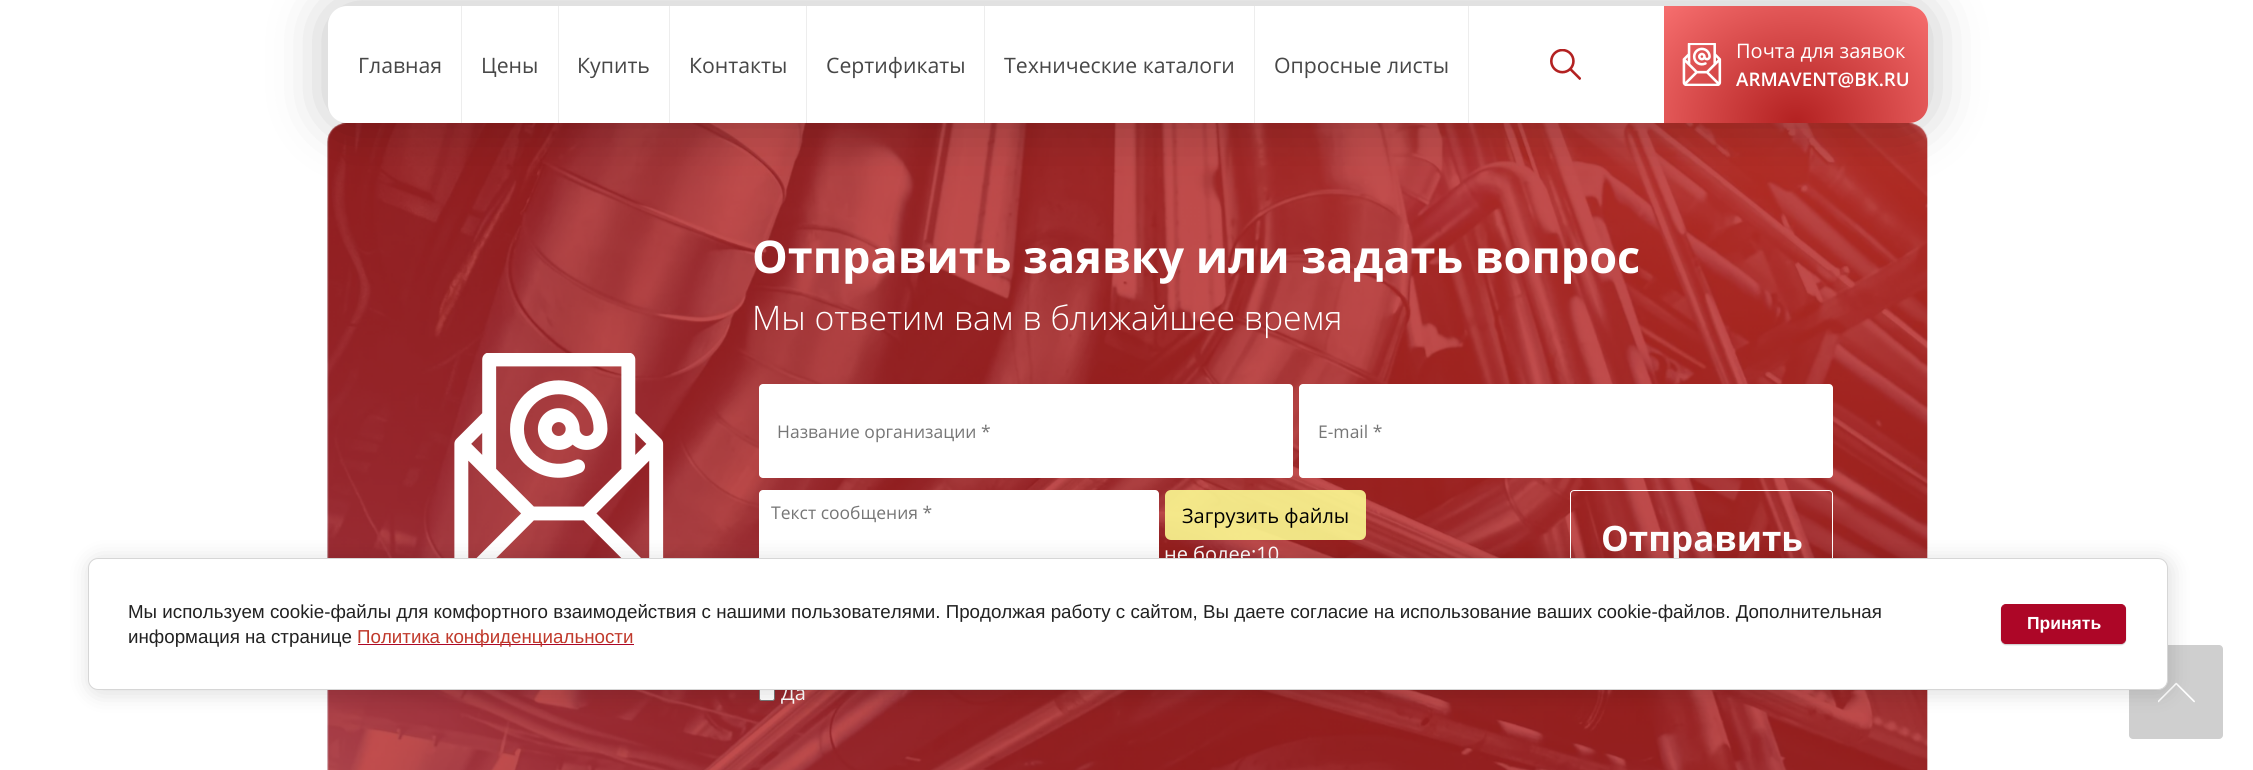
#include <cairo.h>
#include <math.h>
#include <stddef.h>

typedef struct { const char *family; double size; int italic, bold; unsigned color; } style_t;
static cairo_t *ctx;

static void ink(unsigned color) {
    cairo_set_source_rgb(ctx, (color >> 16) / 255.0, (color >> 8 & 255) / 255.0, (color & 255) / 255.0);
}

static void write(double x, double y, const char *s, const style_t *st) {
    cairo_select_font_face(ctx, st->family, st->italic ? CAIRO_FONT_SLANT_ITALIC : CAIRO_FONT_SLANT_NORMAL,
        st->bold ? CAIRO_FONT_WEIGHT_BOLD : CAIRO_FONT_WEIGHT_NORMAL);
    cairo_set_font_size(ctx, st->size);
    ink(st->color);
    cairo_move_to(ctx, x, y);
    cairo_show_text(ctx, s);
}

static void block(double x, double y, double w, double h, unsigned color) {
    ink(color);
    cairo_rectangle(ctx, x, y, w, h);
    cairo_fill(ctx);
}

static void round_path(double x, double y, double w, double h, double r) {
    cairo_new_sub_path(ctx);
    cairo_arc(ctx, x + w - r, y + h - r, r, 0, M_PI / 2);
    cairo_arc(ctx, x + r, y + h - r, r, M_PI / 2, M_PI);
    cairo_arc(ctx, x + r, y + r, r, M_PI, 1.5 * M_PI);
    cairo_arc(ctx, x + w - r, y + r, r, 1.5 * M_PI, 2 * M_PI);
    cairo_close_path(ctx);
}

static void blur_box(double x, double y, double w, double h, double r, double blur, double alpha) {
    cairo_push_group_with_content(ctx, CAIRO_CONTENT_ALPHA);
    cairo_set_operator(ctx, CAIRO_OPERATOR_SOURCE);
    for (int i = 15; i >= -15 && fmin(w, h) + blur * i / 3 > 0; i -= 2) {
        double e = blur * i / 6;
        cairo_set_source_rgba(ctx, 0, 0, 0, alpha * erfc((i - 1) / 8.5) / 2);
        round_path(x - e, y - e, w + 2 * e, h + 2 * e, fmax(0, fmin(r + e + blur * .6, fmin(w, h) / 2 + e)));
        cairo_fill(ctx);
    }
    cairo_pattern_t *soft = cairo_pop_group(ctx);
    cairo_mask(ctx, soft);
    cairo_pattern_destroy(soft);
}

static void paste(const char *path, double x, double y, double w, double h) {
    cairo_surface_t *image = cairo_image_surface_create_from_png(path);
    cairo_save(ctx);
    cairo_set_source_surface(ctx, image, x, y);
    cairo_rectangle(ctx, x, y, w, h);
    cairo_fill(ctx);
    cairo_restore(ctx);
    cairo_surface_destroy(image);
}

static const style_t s1 = {"Open Sans", 21.25, 0, 0, 0x474747};
static const style_t s2 = {"Open Sans", 20, 0, 0, 0xffffff};
static const style_t s3 = {"Open Sans SemiBold", 18.75, 0, 0, 0xffffff};
static const style_t s4 = {"Open Sans", 45, 0, 1, 0xffffff};
static const style_t s5 = {"Open Sans Light", 33.8, 0, 0, 0xffffff};
static const style_t s6 = {"Open Sans", 17.5, 0, 0, 0x767676};
static const style_t s7 = {"Open Sans", 20, 0, 0, 0x000000};
static const style_t s8 = {"Open Sans", 35, 0, 1, 0xffffff};
static const style_t s9 = {"Liberation Sans", 18.75, 0, 0, 0x212121};
static const style_t s10 = {"Liberation Sans", 18.75, 0, 0, 0xc0392b};
static const style_t s11 = {"Liberation Sans", 17.5, 0, 1, 0xffffff};

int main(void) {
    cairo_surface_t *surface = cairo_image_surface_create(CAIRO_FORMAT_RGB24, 2253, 770);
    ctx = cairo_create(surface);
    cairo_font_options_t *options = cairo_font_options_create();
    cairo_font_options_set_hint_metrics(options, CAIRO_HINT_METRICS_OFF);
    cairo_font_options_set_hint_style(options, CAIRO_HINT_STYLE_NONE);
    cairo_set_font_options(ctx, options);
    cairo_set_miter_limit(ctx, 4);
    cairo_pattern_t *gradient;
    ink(0xffffff);
    cairo_paint(ctx);
    paste("pic3.png", 327, 123, 1601, 647);
    ink(0x000000);
    blur_box(326, 5, 1603, 119, 20, 28, 0.24);
    ink(0xffffff);
    round_path(328, 6, 1600, 117, 19);
    cairo_fill(ctx);
    block(461, 6, 1, 117, 0xededed);
    write(358, 73, "Главная", &s1);
    block(558, 6, 1, 117, 0xededed);
    write(481, 73, "Цены", &s1);
    block(669, 6, 1, 117, 0xededed);
    write(577, 73, "Купить", &s1);
    block(806, 6, 1, 117, 0xededed);
    write(689, 73, "Контакты", &s1);
    block(984, 6, 1, 117, 0xededed);
    write(826, 73, "Сертификаты", &s1);
    block(1254, 6, 1, 117, 0xededed);
    write(1004, 73, "Технические каталоги", &s1);
    block(1468, 6, 1, 117, 0xededed);
    write(1274, 73, "Опросные листы", &s1);
    paste("pic1.png", 1550, 49, 31, 31);
    gradient = cairo_pattern_create_radial(0, 0, 0, 0, 0, 1);
    cairo_pattern_set_matrix(gradient, &(cairo_matrix_t){1.0 / 186, 0, 0, 1.0 / 164, -1.0 * 1796 / 186, -1.0 * 123 / 164});
    cairo_pattern_add_color_stop_rgba(gradient, 0, 0.702, 0.129, 0.129, 1);
    cairo_pattern_add_color_stop_rgba(gradient, 1, 0.965, 0.431, 0.431, 1);
    cairo_set_source(ctx, gradient);
    cairo_pattern_destroy(gradient);
    cairo_new_path(ctx);
    cairo_move_to(ctx, 1664, 6);
    cairo_line_to(ctx, 1909, 6);
    cairo_curve_to(ctx, 1919.5, 6, 1928, 14.5, 1928, 25);
    cairo_line_to(ctx, 1928, 104);
    cairo_curve_to(ctx, 1928, 114.5, 1919.5, 123, 1909, 123);
    cairo_line_to(ctx, 1664, 123);
    cairo_close_path(ctx);
    cairo_fill(ctx);
    paste("pic2.png", 1682, 43, 40, 43);
    write(1736, 58, "Почта для заявок", &s2);
    write(1736, 86, "ARMAVENT@BK.RU", &s3);
    paste("pic4.png", 454, 353, 210, 205);
    write(752, 273, "Отправить заявку или задать вопрос", &s4);
    write(752, 330, "Мы ответим вам в ближайшее время", &s5);
    round_path(759, 384, 534, 94, 4);
    cairo_fill(ctx);
    write(777, 438, "Название организации *", &s6);
    ink(0xffffff);
    round_path(1299, 384, 534, 94, 4);
    cairo_fill(ctx);
    write(1318, 438, "E-mail *", &s6);
    ink(0xffffff);
    round_path(759, 490, 400, 94, 4);
    cairo_fill(ctx);
    write(771, 519, "Текст сообщения *", &s6);
    cairo_set_source_rgba(ctx, 0.984, 0.984, 0.573, 0.89);
    round_path(1165, 490, 201, 50, 6);
    cairo_fill(ctx);
    write(1182, 523, "Загрузить файлы", &s7);
    write(1164, 561, "не более:10", &s2);
    round_path(1570.5, 490.5, 262, 93, 3.5);
    cairo_set_line_width(ctx, 1);
    cairo_stroke(ctx);
    write(1601, 551, "Отправить", &s8);
    round_path(759.5, 685.5, 15, 15, 2);
    cairo_fill_preserve(ctx);
    ink(0x767676);
    cairo_stroke(ctx);
    write(781, 700, "Да", &s2);
    ink(0xcfcfcf);
    round_path(2129, 645, 94, 94, 4);
    cairo_fill(ctx);
    paste("pic5.png", 2158, 682, 37, 21);
    ink(0x000000);
    blur_box(90, 560, 2080, 133, 10, 11, 0.14);
    ink(0xffffff);
    round_path(88.5, 558.5, 2079, 131, 9.5);
    cairo_fill_preserve(ctx);
    ink(0xd6d6d6);
    cairo_stroke(ctx);
    write(128, 618, "Мы используем cookie-файлы для комфортного взаимодействия с нашими пользователями. Продолжая работу с сайтом, Вы даете согласие на использование ваших cookie-файлов. Дополнительная", &s9);
    write(128, 643, "информация на странице", &s9);
    block(358, 644, 276, 1, 0xad0627);
    write(357, 643, "Политика конфиденциальности", &s10);
    ink(0x000000);
    blur_box(2001, 605, 125, 40, 5, 0.5, 0.2);
    ink(0xad0627);
    round_path(2001.5, 604.5, 124, 39, 4.5);
    cairo_fill_preserve(ctx);
    cairo_stroke(ctx);
    write(2027, 629, "Принять", &s11);
    cairo_surface_write_to_png(surface, "screenshot.png");
    cairo_font_options_destroy(options);
    cairo_destroy(ctx);
    cairo_surface_destroy(surface);
    return 0;
}
